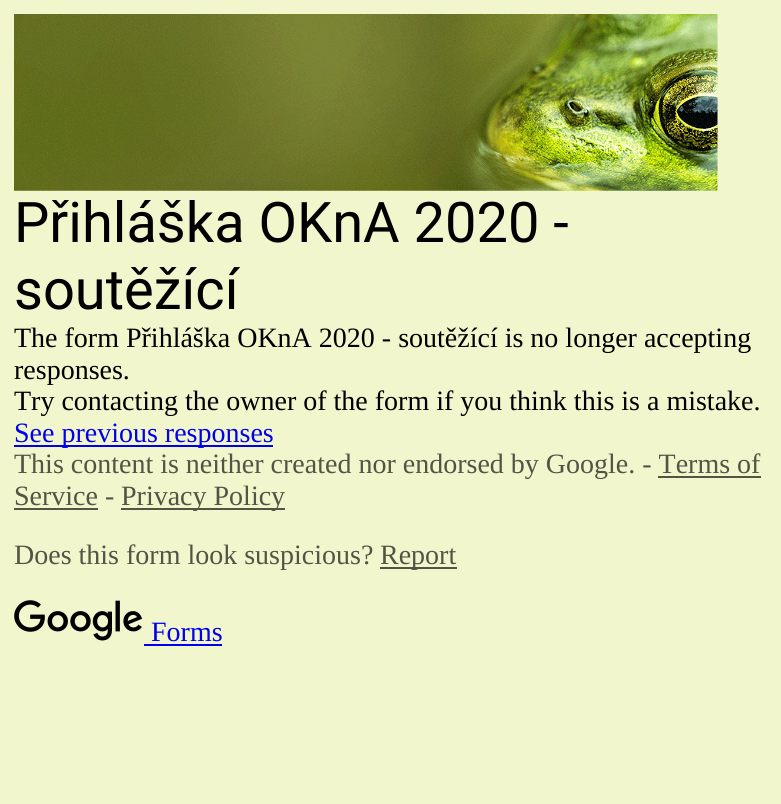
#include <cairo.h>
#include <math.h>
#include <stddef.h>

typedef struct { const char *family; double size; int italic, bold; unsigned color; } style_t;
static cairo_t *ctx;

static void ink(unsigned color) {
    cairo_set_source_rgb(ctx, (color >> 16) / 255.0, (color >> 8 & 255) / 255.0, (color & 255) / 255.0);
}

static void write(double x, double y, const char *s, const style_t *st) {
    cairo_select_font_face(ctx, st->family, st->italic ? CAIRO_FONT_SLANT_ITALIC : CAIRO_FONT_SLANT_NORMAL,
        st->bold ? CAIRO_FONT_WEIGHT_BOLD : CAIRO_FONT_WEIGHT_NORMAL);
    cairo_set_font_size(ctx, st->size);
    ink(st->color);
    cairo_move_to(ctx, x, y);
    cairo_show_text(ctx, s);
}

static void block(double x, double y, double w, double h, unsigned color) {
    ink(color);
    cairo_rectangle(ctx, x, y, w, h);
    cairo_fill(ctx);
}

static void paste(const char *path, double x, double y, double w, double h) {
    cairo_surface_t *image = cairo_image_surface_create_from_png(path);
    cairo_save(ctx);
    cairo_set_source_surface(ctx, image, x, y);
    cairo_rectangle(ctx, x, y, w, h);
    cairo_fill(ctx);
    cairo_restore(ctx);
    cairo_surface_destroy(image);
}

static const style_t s1 = {"Roboto", 56, 0, 0, 0x000000};
static const style_t s2 = {"Liberation Serif", 28, 0, 0, 0x000000};
static const style_t s3 = {"Liberation Serif", 28, 0, 0, 0x0000ee};
static const style_t s4 = {"Liberation Serif", 28, 0, 0, 0x525445};

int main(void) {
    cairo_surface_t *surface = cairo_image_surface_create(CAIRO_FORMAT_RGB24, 781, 804);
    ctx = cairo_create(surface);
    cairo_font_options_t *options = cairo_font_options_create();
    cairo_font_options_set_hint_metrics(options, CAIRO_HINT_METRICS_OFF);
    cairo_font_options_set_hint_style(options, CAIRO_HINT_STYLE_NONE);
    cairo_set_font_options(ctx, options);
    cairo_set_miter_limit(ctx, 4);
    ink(0xf2f6cc);
    cairo_paint(ctx);
    paste("pic1.png", 14, 14, 704, 177);
    write(14, 242, "Přihláška OKnA 2020 -", &s1);
    write(14, 309, "soutěžící", &s1);
    write(14, 347, "The form Přihláška OKnA 2020 - soutěžící is no longer accepting", &s2);
    write(14, 379, "responses.", &s2);
    write(14, 410, "Try contacting the owner of the form if you think this is a mistake.", &s2);
    block(14, 445, 259, 2, 0x0000ee);
    write(14, 442, "See previous responses", &s3);
    write(14, 473, "This content is neither created nor endorsed by Google. - Terms of", &s4);
    write(14, 505, "Service -", &s4);
    block(658, 476, 103, 2, 0x525445);
    block(14, 508, 84, 2, 0x525445);
    block(121, 508, 164, 2, 0x525445);
    write(121, 505, "Privacy Policy", &s4);
    write(14, 564, "Does this form look suspicious?", &s4);
    block(380, 567, 77, 2, 0x525445);
    write(380, 564, "Report", &s4);
    paste("pic2.png", 14, 600, 128, 41);
    write(151, 641, "Forms", &s3);
    block(144, 644, 78, 2, 0x0000ee);
    cairo_surface_write_to_png(surface, "screenshot.png");
    cairo_font_options_destroy(options);
    cairo_destroy(ctx);
    cairo_surface_destroy(surface);
    return 0;
}
